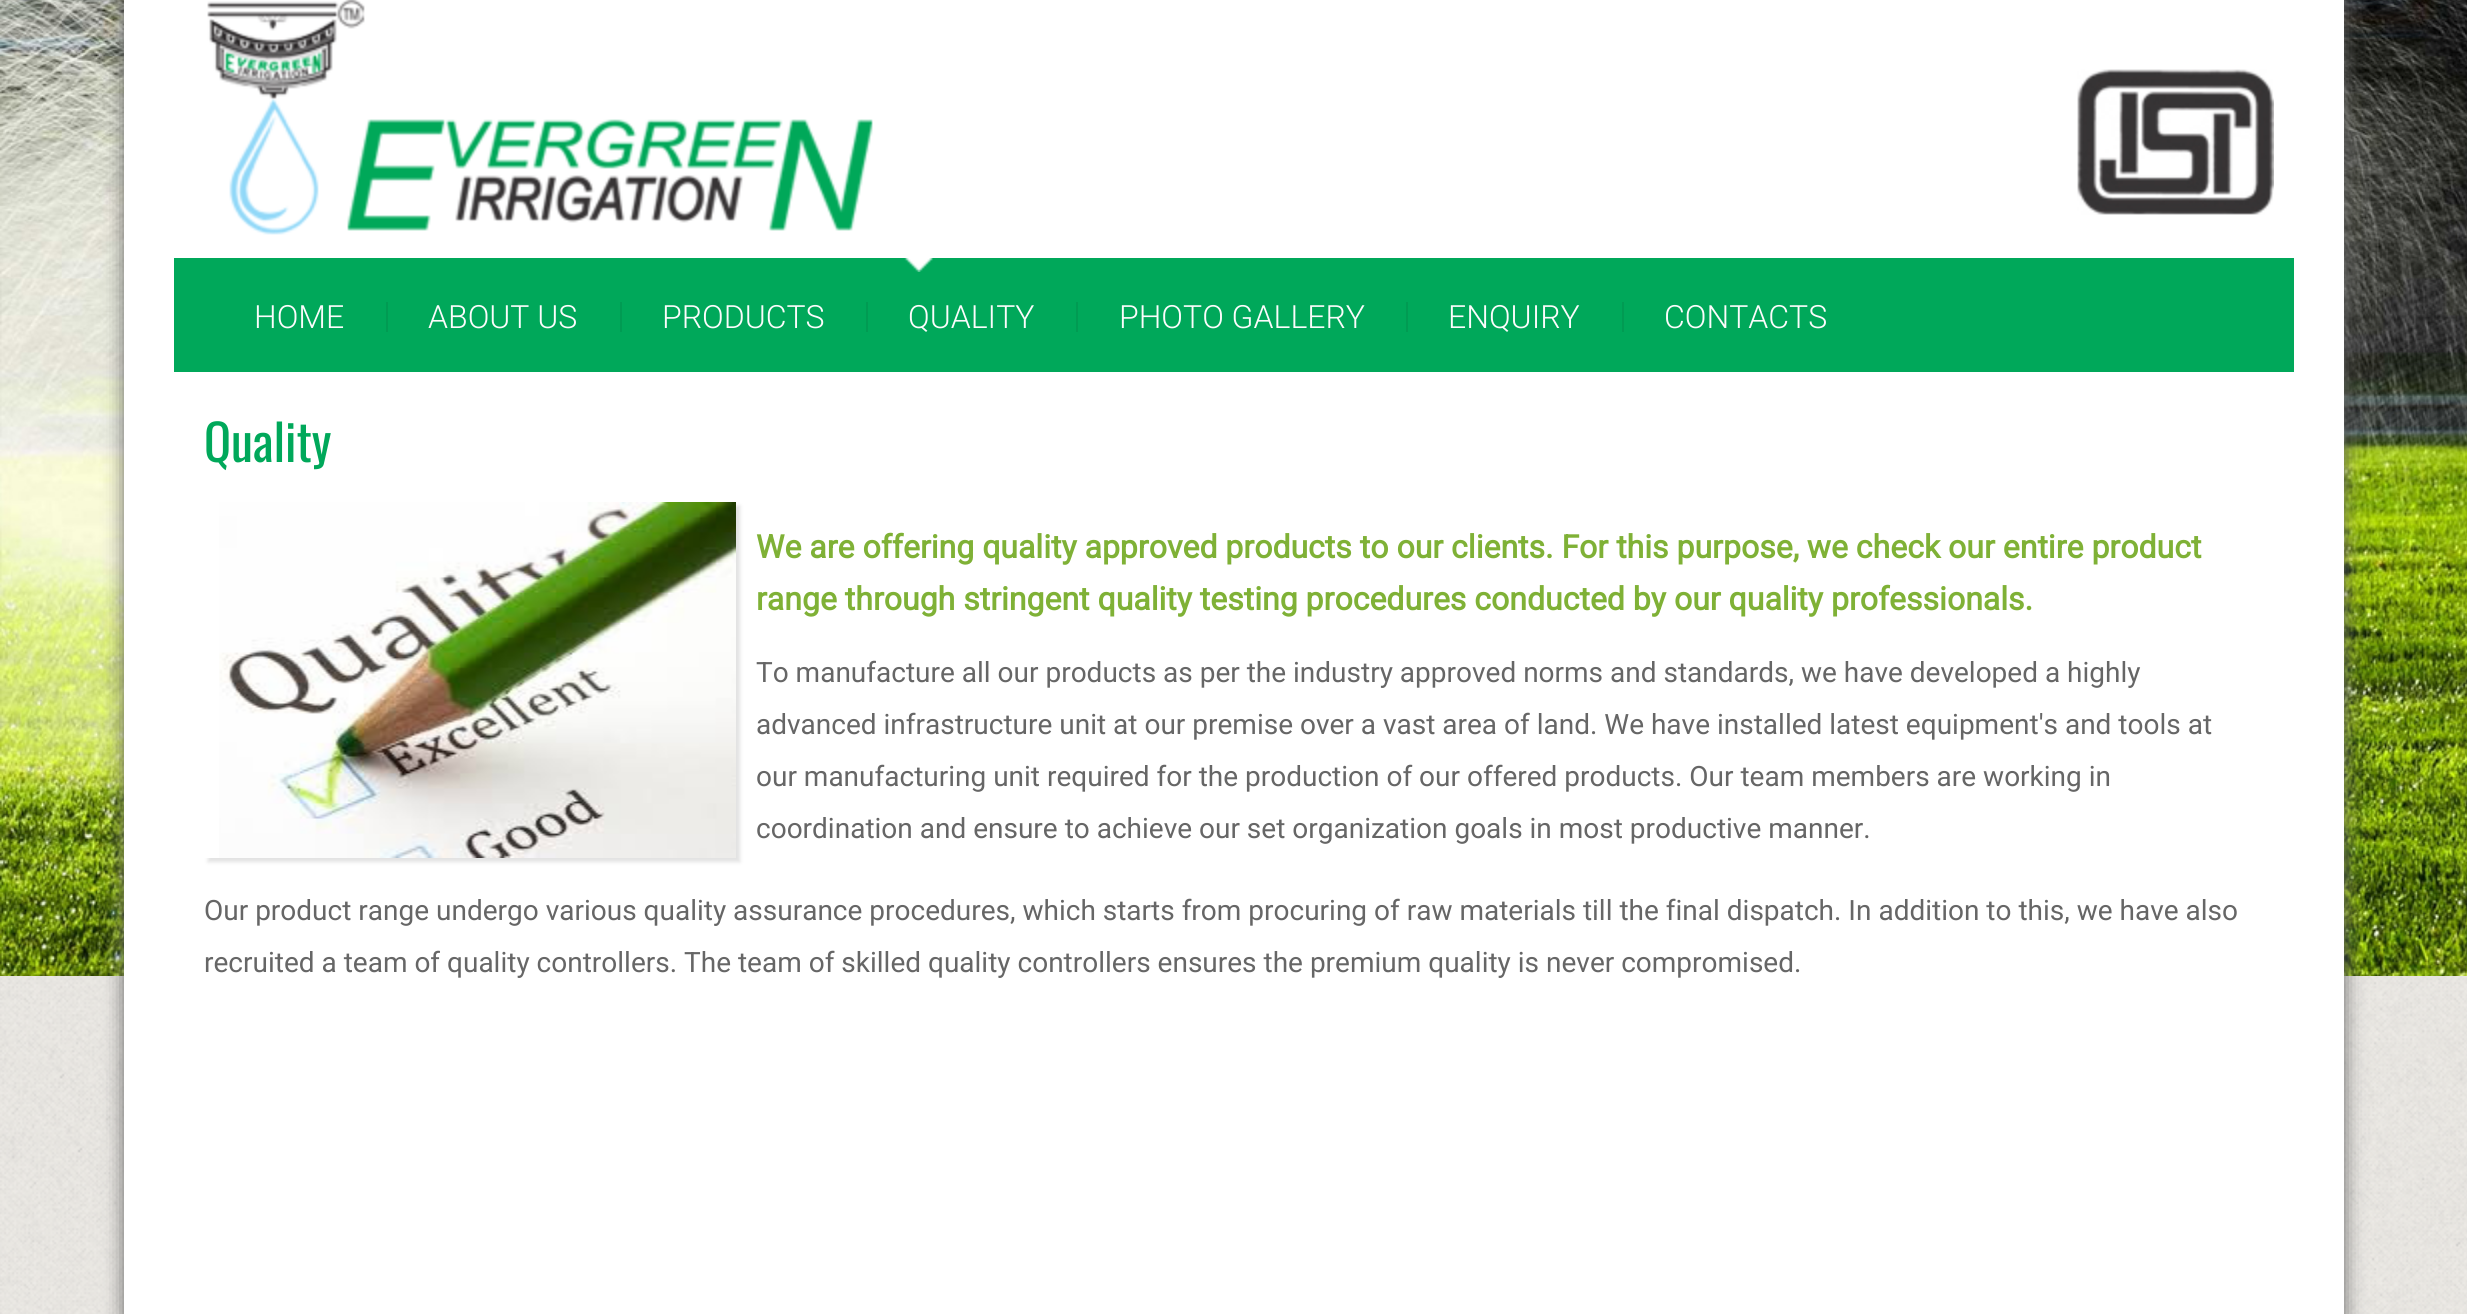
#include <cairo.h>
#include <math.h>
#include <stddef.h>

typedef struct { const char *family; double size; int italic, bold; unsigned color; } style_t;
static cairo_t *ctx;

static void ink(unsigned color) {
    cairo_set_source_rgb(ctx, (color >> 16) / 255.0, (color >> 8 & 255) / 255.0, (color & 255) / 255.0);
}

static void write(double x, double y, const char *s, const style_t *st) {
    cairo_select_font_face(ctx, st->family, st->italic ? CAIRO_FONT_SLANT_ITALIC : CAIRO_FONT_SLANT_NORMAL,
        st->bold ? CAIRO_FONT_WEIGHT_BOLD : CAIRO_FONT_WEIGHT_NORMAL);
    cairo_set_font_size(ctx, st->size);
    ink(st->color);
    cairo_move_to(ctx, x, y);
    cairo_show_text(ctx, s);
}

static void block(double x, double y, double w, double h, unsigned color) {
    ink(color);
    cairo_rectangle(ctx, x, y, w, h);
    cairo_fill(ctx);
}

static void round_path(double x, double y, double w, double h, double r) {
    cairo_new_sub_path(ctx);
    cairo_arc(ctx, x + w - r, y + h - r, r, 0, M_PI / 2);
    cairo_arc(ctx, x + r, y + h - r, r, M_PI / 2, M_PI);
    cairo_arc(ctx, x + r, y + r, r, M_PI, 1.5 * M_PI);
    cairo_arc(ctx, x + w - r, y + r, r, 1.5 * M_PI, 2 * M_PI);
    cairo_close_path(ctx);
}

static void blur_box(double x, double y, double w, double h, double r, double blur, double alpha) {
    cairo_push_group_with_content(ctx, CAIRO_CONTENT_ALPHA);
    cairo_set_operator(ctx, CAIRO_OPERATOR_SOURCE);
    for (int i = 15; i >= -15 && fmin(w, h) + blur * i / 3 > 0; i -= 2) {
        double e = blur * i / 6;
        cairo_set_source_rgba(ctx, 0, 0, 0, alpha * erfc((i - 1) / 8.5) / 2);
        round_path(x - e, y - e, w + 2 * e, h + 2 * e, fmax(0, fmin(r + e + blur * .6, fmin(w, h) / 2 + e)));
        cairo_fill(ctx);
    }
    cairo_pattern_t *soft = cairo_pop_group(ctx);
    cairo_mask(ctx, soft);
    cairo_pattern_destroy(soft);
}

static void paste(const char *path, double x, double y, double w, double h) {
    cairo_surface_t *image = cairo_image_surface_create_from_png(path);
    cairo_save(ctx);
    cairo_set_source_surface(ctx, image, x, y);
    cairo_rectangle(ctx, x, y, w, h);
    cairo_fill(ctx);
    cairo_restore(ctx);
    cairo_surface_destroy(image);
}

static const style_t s1 = {"Roboto Light", 32, 0, 0, 0xfcfcfc};
static const style_t s2 = {"Oswald", 50, 0, 0, 0x00a85a};
static const style_t s3 = {"Roboto", 32, 0, 1, 0x7fb136};
static const style_t s4 = {"Roboto", 28, 0, 0, 0x666666};

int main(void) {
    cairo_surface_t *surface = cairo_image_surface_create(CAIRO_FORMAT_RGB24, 2467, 1314);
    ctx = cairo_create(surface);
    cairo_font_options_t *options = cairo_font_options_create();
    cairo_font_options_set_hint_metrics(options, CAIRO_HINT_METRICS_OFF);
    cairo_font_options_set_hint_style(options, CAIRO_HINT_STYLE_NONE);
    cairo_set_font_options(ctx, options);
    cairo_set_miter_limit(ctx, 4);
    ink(0xffffff);
    cairo_paint(ctx);
    paste("pic1.png", 0, 976, 2467, 338);
    paste("pic2.png", 0, 0, 2467, 976);
    ink(0x666666);
    blur_box(124, -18, 2220, 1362, 0, 10, 1);
    block(124, 0, 2220, 1314, 0xffffff);
    paste("pic3.png", 207, 0, 666, 235);
    paste("pic4.png", 2077, 69, 197, 146);
    block(174, 258, 2120, 114, 0x00a85a);
    block(386, 302, 2, 30, 0x019b53);
    write(254, 328, "HOME", &s1);
    block(620, 302, 2, 30, 0x019b53);
    write(428, 328, "ABOUT US", &s1);
    block(866, 302, 2, 30, 0x019b53);
    write(662, 328, "PRODUCTS", &s1);
    block(1076, 302, 2, 30, 0x019b53);
    paste("pic5.png", 904, 258, 29, 14);
    write(908, 328, "QUALITY", &s1);
    block(1406, 302, 2, 30, 0x019b53);
    write(1119, 328, "PHOTO GALLERY", &s1);
    block(1622, 302, 2, 30, 0x019b53);
    write(1448, 328, "ENQUIRY", &s1);
    write(1664, 328, "CONTACTS", &s1);
    write(204, 462, "Quality", &s2);
    cairo_save(ctx);
    cairo_set_fill_rule(ctx, CAIRO_FILL_RULE_EVEN_ODD);
    cairo_new_path(ctx);
    cairo_move_to(ctx, 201, 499);
    cairo_line_to(ctx, 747, 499);
    cairo_line_to(ctx, 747, 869);
    cairo_line_to(ctx, 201, 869);
    cairo_close_path(ctx);
    cairo_move_to(ctx, 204, 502);
    cairo_line_to(ctx, 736, 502);
    cairo_line_to(ctx, 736, 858);
    cairo_line_to(ctx, 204, 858);
    cairo_close_path(ctx);
    cairo_clip(ctx);
    ink(0xe2e2e2);
    blur_box(208, 506, 532, 356, 0, 2, 1);
    cairo_restore(ctx);
    paste("pic6.png", 219, 502, 517, 356);
    write(756, 558, "We are offering quality approved products to our clients. For this purpose, we check our entire product", &s3);
    write(756, 610, "range through stringent quality testing procedures conducted by our quality professionals.", &s3);
    write(756, 682, "To manufacture all our products as per the industry approved norms and standards, we have developed a highly", &s4);
    write(756, 734, "advanced infrastructure unit at our premise over a vast area of land. We have installed latest equipment's and tools at", &s4);
    write(756, 786, "our manufacturing unit required for the production of our offered products. Our team members are working in", &s4);
    write(756, 838, "coordination and ensure to achieve our set organization goals in most productive manner.", &s4);
    write(204, 920, "Our product range undergo various quality assurance procedures, which starts from procuring of raw materials till the final dispatch. In addition to this, we have also", &s4);
    write(204, 972, "recruited a team of quality controllers. The team of skilled quality controllers ensures the premium quality is never compromised.", &s4);
    cairo_surface_write_to_png(surface, "screenshot.png");
    cairo_font_options_destroy(options);
    cairo_destroy(ctx);
    cairo_surface_destroy(surface);
    return 0;
}
